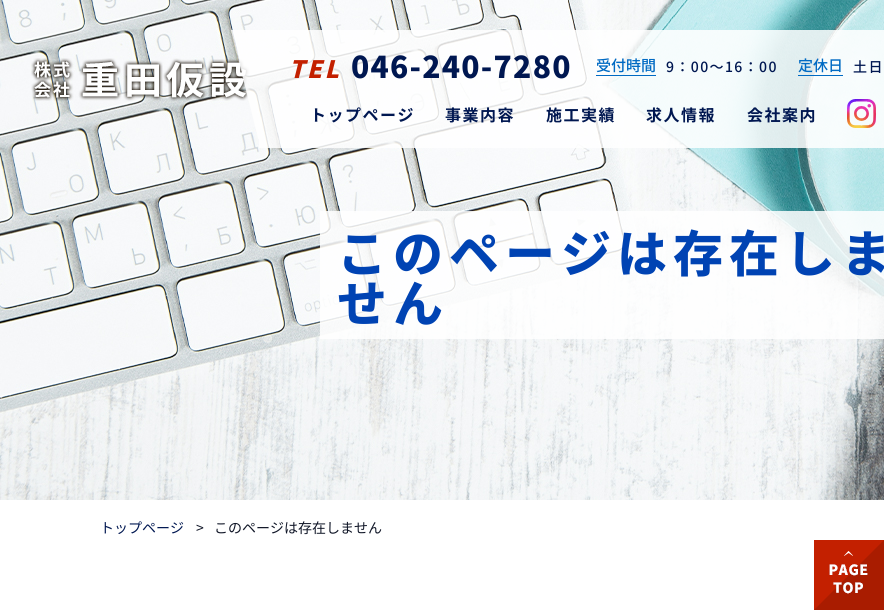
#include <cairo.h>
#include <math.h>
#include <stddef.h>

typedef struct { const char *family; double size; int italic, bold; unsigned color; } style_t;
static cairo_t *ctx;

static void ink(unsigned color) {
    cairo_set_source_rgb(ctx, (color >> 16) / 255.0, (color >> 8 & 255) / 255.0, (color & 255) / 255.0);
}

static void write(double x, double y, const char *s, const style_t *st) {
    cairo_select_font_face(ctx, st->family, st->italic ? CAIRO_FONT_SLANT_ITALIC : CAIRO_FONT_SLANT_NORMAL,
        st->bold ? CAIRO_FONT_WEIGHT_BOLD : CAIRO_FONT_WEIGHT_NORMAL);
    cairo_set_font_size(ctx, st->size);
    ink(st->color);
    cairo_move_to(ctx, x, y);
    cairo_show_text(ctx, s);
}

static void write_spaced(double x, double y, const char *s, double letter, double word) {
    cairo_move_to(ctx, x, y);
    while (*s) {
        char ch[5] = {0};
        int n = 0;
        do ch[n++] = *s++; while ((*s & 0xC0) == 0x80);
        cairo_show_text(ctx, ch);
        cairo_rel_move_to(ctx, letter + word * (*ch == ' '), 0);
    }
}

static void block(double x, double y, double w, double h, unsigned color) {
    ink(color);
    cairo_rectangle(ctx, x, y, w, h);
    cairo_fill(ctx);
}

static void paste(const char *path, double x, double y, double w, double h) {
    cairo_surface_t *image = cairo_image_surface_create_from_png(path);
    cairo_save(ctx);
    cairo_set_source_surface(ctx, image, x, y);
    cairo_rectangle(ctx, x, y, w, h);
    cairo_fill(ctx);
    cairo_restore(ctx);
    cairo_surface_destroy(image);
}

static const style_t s1 = {"Noto Sans JP Medium", 15, 0, 0, 0x006ac3};
static const style_t s2 = {"Noto Sans JP", 14, 0, 0, 0x001751};
static const style_t s3 = {"Noto Sans JP", 14, 0, 0, 0x111728};

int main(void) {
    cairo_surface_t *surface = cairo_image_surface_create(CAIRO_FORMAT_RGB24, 884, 610);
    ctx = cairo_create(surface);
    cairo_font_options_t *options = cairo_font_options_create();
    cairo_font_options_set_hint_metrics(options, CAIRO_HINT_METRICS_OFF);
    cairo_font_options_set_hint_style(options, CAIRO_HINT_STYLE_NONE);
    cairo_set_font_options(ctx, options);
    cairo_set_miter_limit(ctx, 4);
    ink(0xffffff);
    cairo_paint(ctx);
    paste("pic4.png", 0, 0, 884, 500);
    paste("pic1.png", 31, 58, 219, 43);
    cairo_set_source_rgba(ctx, 1, 1, 1, 0.85);
    cairo_rectangle(ctx, 259, 30, 625, 118);
    cairo_fill(ctx);
    paste("pic2.png", 231, 30, 28, 109);
    cairo_select_font_face(ctx, "Noto Sans JP Black", CAIRO_FONT_SLANT_ITALIC, CAIRO_FONT_WEIGHT_NORMAL);
    cairo_set_font_size(ctx, 24);
    ink(0xc32000);
    write_spaced(289, 78, "TEL", 2.5, 0);
    cairo_select_font_face(ctx, "Noto Sans JP Black", CAIRO_FONT_SLANT_NORMAL, CAIRO_FONT_WEIGHT_NORMAL);
    cairo_set_font_size(ctx, 30);
    ink(0x001751);
    write_spaced(351, 78, "046-240-7280", 1.25, 0);
    block(596, 75, 60, 1, 0x006ac3);
    write(596, 71, "受付時間", &s1);
    cairo_set_font_size(ctx, 14);
    ink(0x001751);
    write_spaced(666, 72, "9：00～16：00", 1.4, 0);
    block(798, 75, 45, 1, 0x006ac3);
    write(798, 71, "定休日", &s1);
    cairo_set_font_size(ctx, 14);
    ink(0x001751);
    write_spaced(853, 72, "土日", 1.4, 0);
    cairo_select_font_face(ctx, "Noto Sans JP", CAIRO_FONT_SLANT_NORMAL, CAIRO_FONT_WEIGHT_BOLD);
    cairo_set_font_size(ctx, 16);
    write_spaced(310, 121, "トップページ", 1.5, 0);
    write_spaced(445, 121, "事業内容", 1.5, 0);
    write_spaced(546, 121, "施工実績", 1.5, 0);
    write_spaced(646, 121, "求人情報", 1.5, 0);
    write_spaced(747, 121, "会社案内", 1.5, 0);
    paste("pic3.png", 847, 99, 29, 29);
    cairo_set_source_rgba(ctx, 1, 1, 1, 0.85);
    cairo_rectangle(ctx, 320, 211, 564, 128);
    cairo_fill(ctx);
    cairo_select_font_face(ctx, "Noto Sans JP ExtraBold", CAIRO_FONT_SLANT_NORMAL, CAIRO_FONT_WEIGHT_NORMAL);
    cairo_set_font_size(ctx, 50);
    ink(0x0043b3);
    write_spaced(337, 272, "このページは存在しま", 6, 0);
    write_spaced(337, 322, "せん", 6, 0);
    write(100, 533, "トップページ", &s2);
    write(196, 533, ">", &s3);
    write(214, 533, "このページは存在しません", &s3);
    paste("pic5.png", 814, 540, 70, 70);
    cairo_surface_write_to_png(surface, "screenshot.png");
    cairo_font_options_destroy(options);
    cairo_destroy(ctx);
    cairo_surface_destroy(surface);
    return 0;
}
